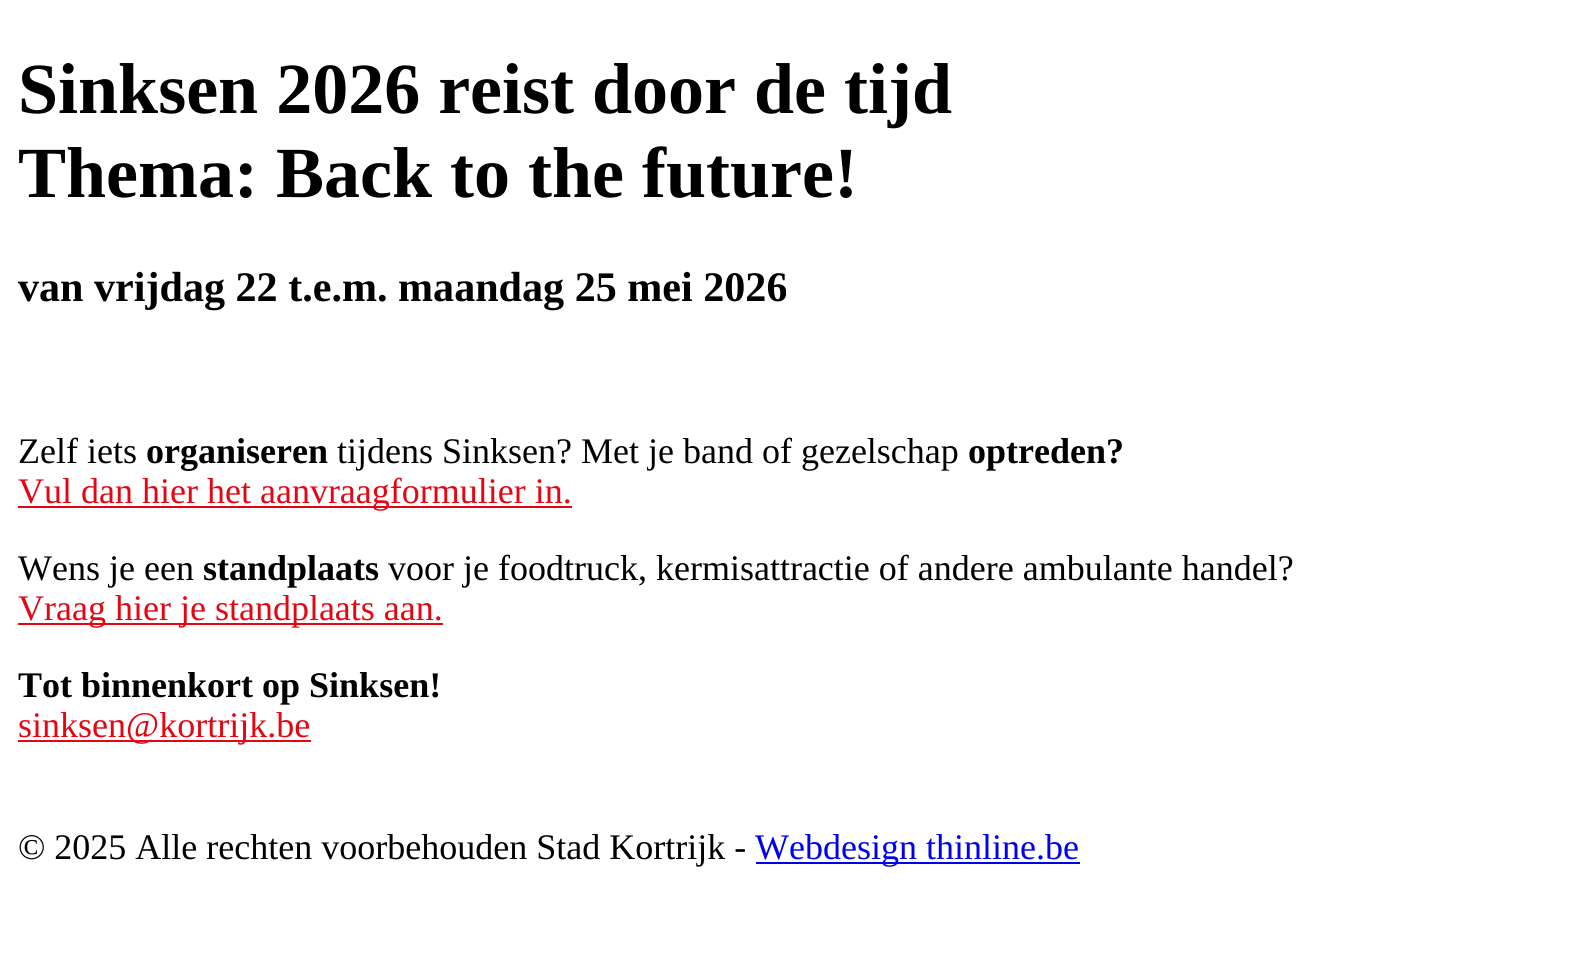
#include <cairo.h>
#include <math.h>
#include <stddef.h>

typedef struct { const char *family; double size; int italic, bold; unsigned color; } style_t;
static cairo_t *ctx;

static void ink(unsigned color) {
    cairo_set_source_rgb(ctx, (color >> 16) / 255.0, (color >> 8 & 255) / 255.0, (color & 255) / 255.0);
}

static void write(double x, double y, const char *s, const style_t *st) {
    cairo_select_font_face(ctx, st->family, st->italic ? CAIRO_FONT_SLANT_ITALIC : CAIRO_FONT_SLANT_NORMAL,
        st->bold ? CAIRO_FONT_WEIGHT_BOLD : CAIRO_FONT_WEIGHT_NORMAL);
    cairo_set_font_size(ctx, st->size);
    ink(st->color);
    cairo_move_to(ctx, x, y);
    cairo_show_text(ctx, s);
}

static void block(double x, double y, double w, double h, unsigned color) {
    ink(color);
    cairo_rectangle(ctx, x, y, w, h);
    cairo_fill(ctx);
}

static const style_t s1 = {"Liberation Serif", 72, 0, 1, 0x000000};
static const style_t s2 = {"Liberation Serif", 42.1, 0, 1, 0x000000};
static const style_t s3 = {"Liberation Serif", 36, 0, 0, 0x000000};
static const style_t s4 = {"Liberation Serif", 36, 0, 1, 0x000000};
static const style_t s5 = {"Liberation Serif", 36, 0, 0, 0xe30613};
static const style_t s6 = {"Liberation Serif", 36, 0, 0, 0x0000ee};

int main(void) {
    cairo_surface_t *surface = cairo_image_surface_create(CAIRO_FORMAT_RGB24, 1577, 973);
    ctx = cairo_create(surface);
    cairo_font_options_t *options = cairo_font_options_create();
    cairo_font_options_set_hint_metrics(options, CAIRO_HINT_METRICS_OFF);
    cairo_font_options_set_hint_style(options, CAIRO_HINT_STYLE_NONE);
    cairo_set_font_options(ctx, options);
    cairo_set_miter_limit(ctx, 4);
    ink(0xffffff);
    cairo_paint(ctx);
    write(18, 113, "Sinksen 2026 reist door de tijd", &s1);
    write(18, 197, "Thema: Back to the future!", &s1);
    write(18, 301, "van vrijdag 22 t.e.m. maandag 25 mei 2026", &s2);
    write(18, 463, "Zelf iets", &s3);
    write(146, 463, "organiseren", &s4);
    write(337, 463, "tijdens Sinksen? Met je band of gezelschap", &s3);
    write(968, 463, "optreden?", &s4);
    block(18, 506, 554, 2, 0xe30613);
    write(18, 503, "Vul dan hier het aanvraagformulier in.", &s5);
    write(18, 580, "Wens je een", &s3);
    write(203, 580, "standplaats", &s4);
    write(388, 580, "voor je foodtruck, kermisattractie of andere ambulante handel?", &s3);
    block(18, 623, 425, 2, 0xe30613);
    write(18, 620, "Vraag hier je standplaats aan.", &s5);
    write(18, 697, "Tot binnenkort op Sinksen!", &s4);
    block(18, 740, 293, 2, 0xe30613);
    write(18, 737, "sinksen@kortrijk.be", &s5);
    write(18, 859, "© 2025 Alle rechten voorbehouden Stad Kortrijk -", &s3);
    block(756, 862, 324, 2, 0x0000ee);
    write(755, 859, "Webdesign thinline.be", &s6);
    cairo_surface_write_to_png(surface, "screenshot.png");
    cairo_font_options_destroy(options);
    cairo_destroy(ctx);
    cairo_surface_destroy(surface);
    return 0;
}
